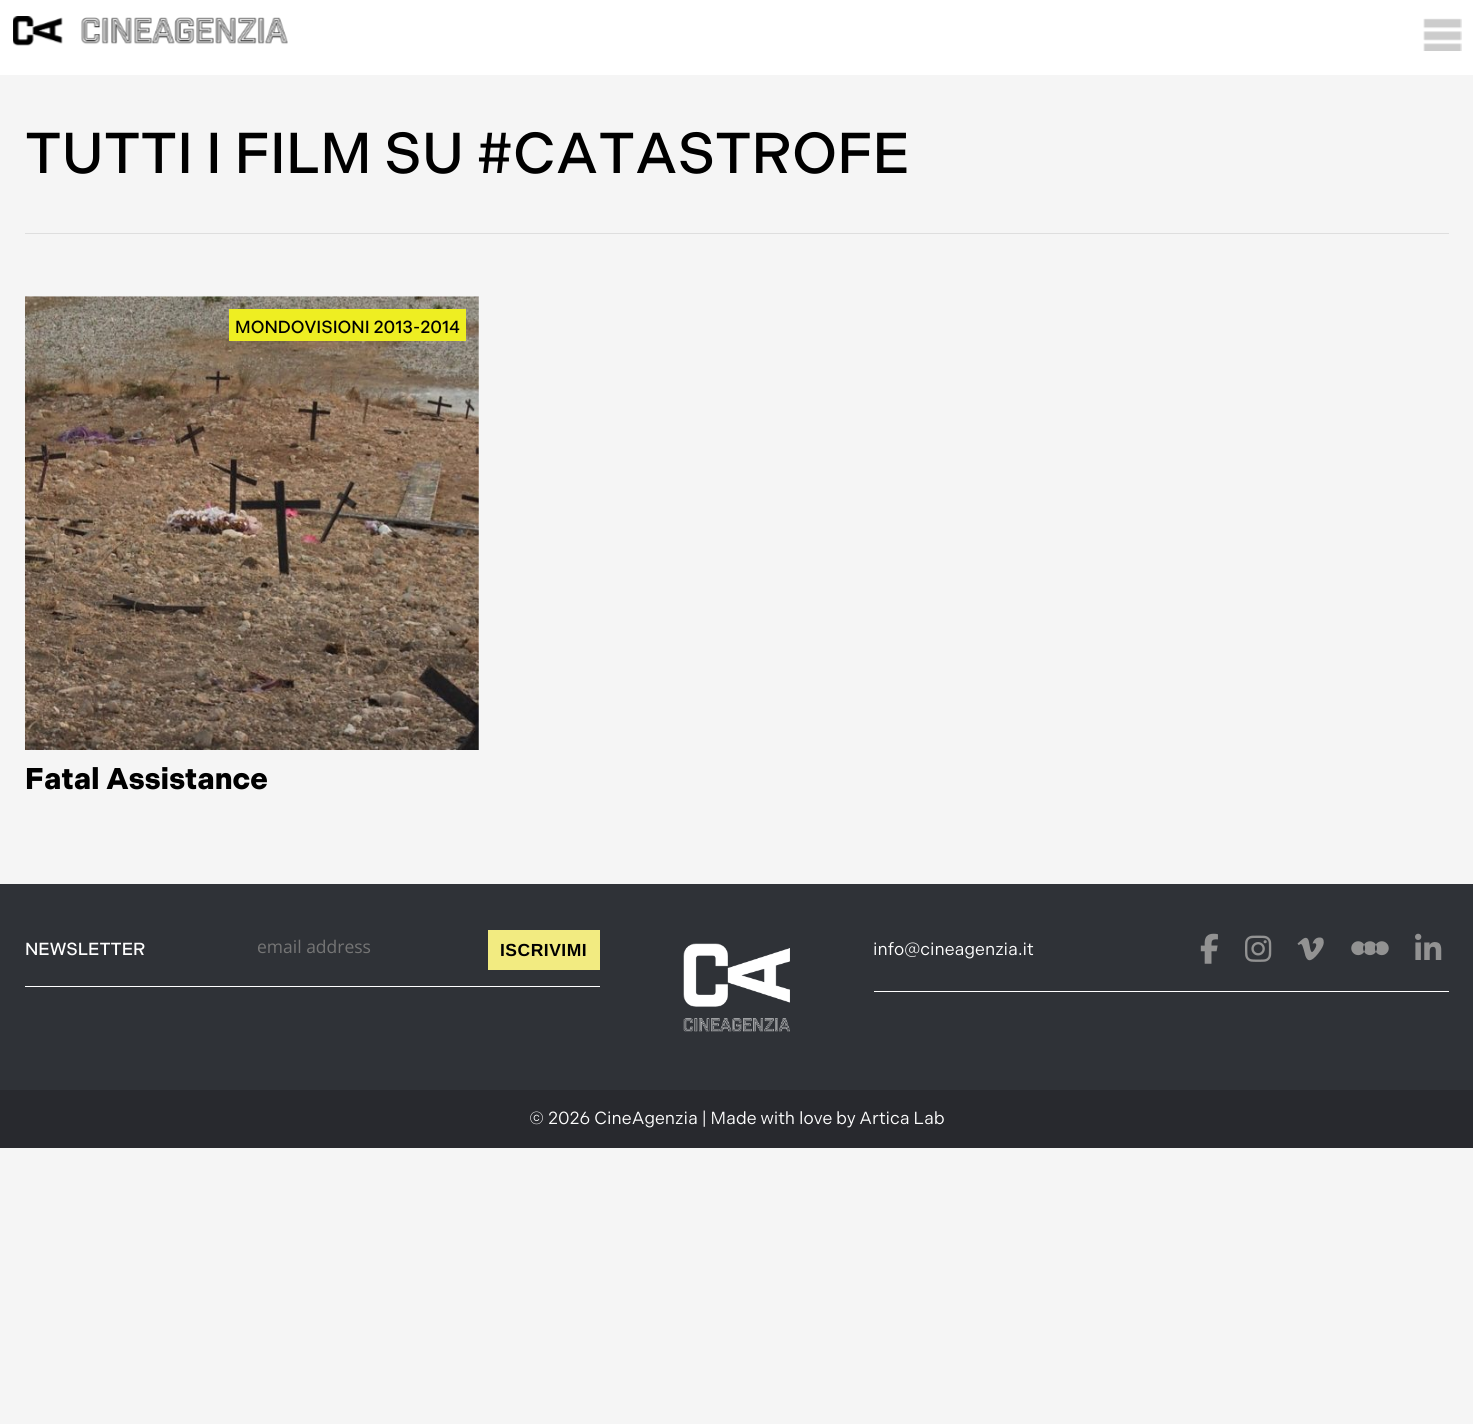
#include <cairo.h>
#include <math.h>
#include <stddef.h>

typedef struct { const char *family; double size; int italic, bold; unsigned color; } style_t;
static cairo_t *ctx;

static void ink(unsigned color) {
    cairo_set_source_rgb(ctx, (color >> 16) / 255.0, (color >> 8 & 255) / 255.0, (color & 255) / 255.0);
}

static void write(double x, double y, const char *s, const style_t *st) {
    cairo_select_font_face(ctx, st->family, st->italic ? CAIRO_FONT_SLANT_ITALIC : CAIRO_FONT_SLANT_NORMAL,
        st->bold ? CAIRO_FONT_WEIGHT_BOLD : CAIRO_FONT_WEIGHT_NORMAL);
    cairo_set_font_size(ctx, st->size);
    ink(st->color);
    cairo_move_to(ctx, x, y);
    cairo_show_text(ctx, s);
}

static void write_spaced(double x, double y, const char *s, double letter, double word) {
    cairo_move_to(ctx, x, y);
    while (*s) {
        char ch[5] = {0};
        int n = 0;
        do ch[n++] = *s++; while ((*s & 0xC0) == 0x80);
        cairo_show_text(ctx, ch);
        cairo_rel_move_to(ctx, letter + word * (*ch == ' '), 0);
    }
}

static void block(double x, double y, double w, double h, unsigned color) {
    ink(color);
    cairo_rectangle(ctx, x, y, w, h);
    cairo_fill(ctx);
}

static void paste(const char *path, double x, double y, double w, double h) {
    cairo_surface_t *image = cairo_image_surface_create_from_png(path);
    cairo_save(ctx);
    cairo_set_source_surface(ctx, image, x, y);
    cairo_rectangle(ctx, x, y, w, h);
    cairo_fill(ctx);
    cairo_restore(ctx);
    cairo_surface_destroy(image);
}

static const style_t s1 = {"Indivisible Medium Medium", 57.5, 0, 0, 0x000000};
static const style_t s2 = {"Indivisible Medium Medium", 17.5, 0, 0, 0x000000};
static const style_t s3 = {"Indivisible", 30, 0, 1, 0x000000};
static const style_t s4 = {"Indivisible Medium Medium", 17.5, 0, 0, 0xffffff};
static const style_t s5 = {"Open Sans", 17.5, 0, 0, 0x757575};
static const style_t s6 = {"Indivisible", 17.5, 0, 0, 0xffffff};

int main(void) {
    cairo_surface_t *surface = cairo_image_surface_create(CAIRO_FORMAT_RGB24, 1473, 1424);
    ctx = cairo_create(surface);
    cairo_font_options_t *options = cairo_font_options_create();
    cairo_font_options_set_hint_metrics(options, CAIRO_HINT_METRICS_OFF);
    cairo_font_options_set_hint_style(options, CAIRO_HINT_STYLE_NONE);
    cairo_set_font_options(ctx, options);
    cairo_set_miter_limit(ctx, 4);
    ink(0xf5f5f5);
    cairo_paint(ctx);
    block(0, 0, 1473, 75, 0xffffff);
    paste("pic1.png", 13, 16, 275, 30);
    paste("pic2.png", 1423, 18, 39, 33);
    write(25, 173, "TUTTI I FILM SU #CATASTROFE", &s1);
    block(25, 233, 1424, 1, 0xdedede);
    paste("pic3.png", 25, 296, 454, 454);
    block(229, 309, 237, 32, 0xeeee22);
    write(235, 333, "MONDOVISIONI 2013-2014", &s2);
    write(25, 789, "Fatal Assistance", &s3);
    block(0, 884, 1473, 206, 0x2f3237);
    write(25, 955, "NEWSLETTER", &s4);
    write(257, 953, "email address", &s5);
    block(488, 930, 112, 40, 0xf2eb81);
    cairo_select_font_face(ctx, "Liberation Sans", CAIRO_FONT_SLANT_NORMAL, CAIRO_FONT_WEIGHT_BOLD);
    ink(0x000000);
    write_spaced(500, 956, "ISCRIVIMI", 0.5, 0);
    block(25, 986, 575, 1, 0xffffff);
    paste("pic4.png", 683, 943, 107, 89);
    write(873, 955, "info@cineagenzia.it", &s6);
    paste("pic5.png", 1200, 933, 18, 31);
    paste("pic6.png", 1245, 935, 27, 27);
    paste("pic7.png", 1297, 937, 27, 24);
    paste("pic8.png", 1351, 941, 38, 15);
    paste("pic9.png", 1415, 933, 27, 27);
    block(874, 991, 575, 1, 0xffffff);
    block(0, 1090, 1473, 58, 0x28292e);
    write(529, 1124, "© 2026 CineAgenzia | Made with love by Artica Lab", &s6);
    cairo_surface_write_to_png(surface, "screenshot.png");
    cairo_font_options_destroy(options);
    cairo_destroy(ctx);
    cairo_surface_destroy(surface);
    return 0;
}
